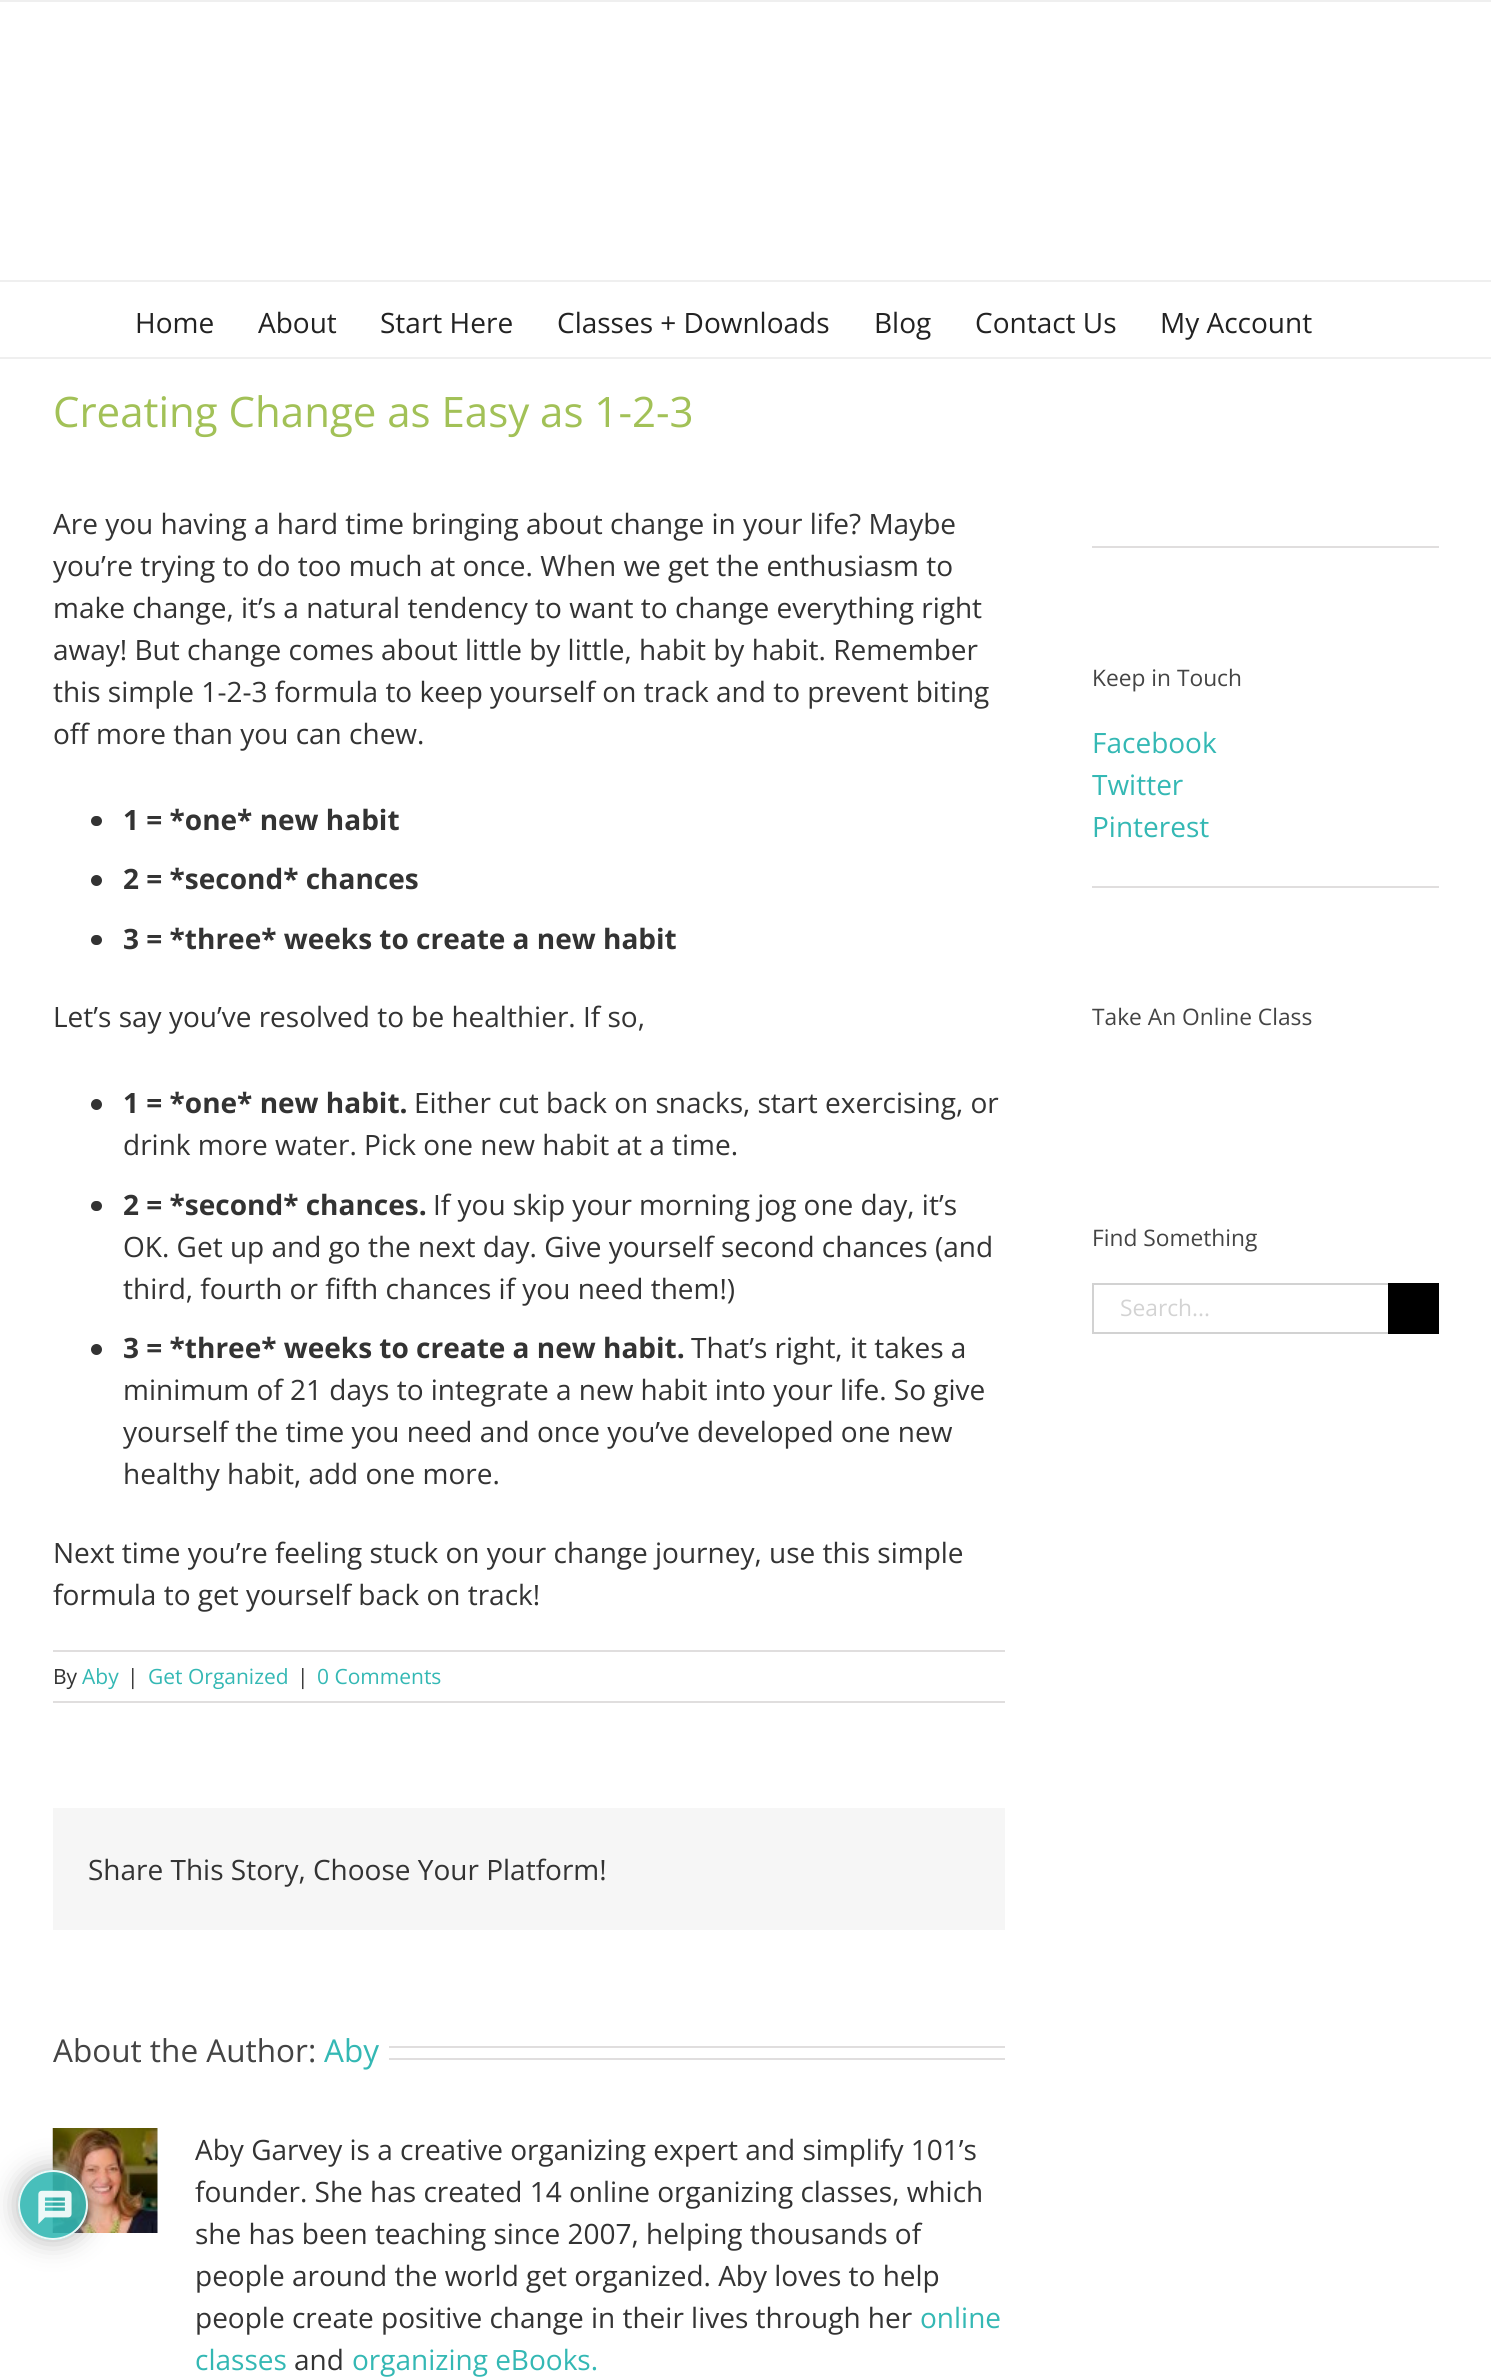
#include <cairo.h>
#include <math.h>
#include <stddef.h>

typedef struct { const char *family; double size; int italic, bold; unsigned color; } style_t;
static cairo_t *ctx;

static void ink(unsigned color) {
    cairo_set_source_rgb(ctx, (color >> 16) / 255.0, (color >> 8 & 255) / 255.0, (color & 255) / 255.0);
}

static void write(double x, double y, const char *s, const style_t *st) {
    cairo_select_font_face(ctx, st->family, st->italic ? CAIRO_FONT_SLANT_ITALIC : CAIRO_FONT_SLANT_NORMAL,
        st->bold ? CAIRO_FONT_WEIGHT_BOLD : CAIRO_FONT_WEIGHT_NORMAL);
    cairo_set_font_size(ctx, st->size);
    ink(st->color);
    cairo_move_to(ctx, x, y);
    cairo_show_text(ctx, s);
}

static void block(double x, double y, double w, double h, unsigned color) {
    ink(color);
    cairo_rectangle(ctx, x, y, w, h);
    cairo_fill(ctx);
}

static void round_path(double x, double y, double w, double h, double r) {
    cairo_new_sub_path(ctx);
    cairo_arc(ctx, x + w - r, y + h - r, r, 0, M_PI / 2);
    cairo_arc(ctx, x + r, y + h - r, r, M_PI / 2, M_PI);
    cairo_arc(ctx, x + r, y + r, r, M_PI, 1.5 * M_PI);
    cairo_arc(ctx, x + w - r, y + r, r, 1.5 * M_PI, 2 * M_PI);
    cairo_close_path(ctx);
}

static void blur_box(double x, double y, double w, double h, double r, double blur, double alpha) {
    cairo_push_group_with_content(ctx, CAIRO_CONTENT_ALPHA);
    cairo_set_operator(ctx, CAIRO_OPERATOR_SOURCE);
    for (int i = 15; i >= -15 && fmin(w, h) + blur * i / 3 > 0; i -= 2) {
        double e = blur * i / 6;
        cairo_set_source_rgba(ctx, 0, 0, 0, alpha * erfc((i - 1) / 8.5) / 2);
        round_path(x - e, y - e, w + 2 * e, h + 2 * e, fmax(0, fmin(r + e + blur * .6, fmin(w, h) / 2 + e)));
        cairo_fill(ctx);
    }
    cairo_pattern_t *soft = cairo_pop_group(ctx);
    cairo_mask(ctx, soft);
    cairo_pattern_destroy(soft);
}

static void paste(const char *path, double x, double y, double w, double h) {
    cairo_surface_t *image = cairo_image_surface_create_from_png(path);
    cairo_save(ctx);
    cairo_set_source_surface(ctx, image, x, y);
    cairo_rectangle(ctx, x, y, w, h);
    cairo_fill(ctx);
    cairo_restore(ctx);
    cairo_surface_destroy(image);
}

static const style_t s1 = {"Open Sans", 28, 0, 0, 0x222222};
static const style_t s2 = {"Open Sans", 42, 0, 0, 0xa2c157};
static const style_t s3 = {"Open Sans", 28, 0, 0, 0x333333};
static const style_t s4 = {"Open Sans", 28, 0, 1, 0x333333};
static const style_t s5 = {"Open Sans", 21, 0, 0, 0x333333};
static const style_t s6 = {"Open Sans", 21, 0, 0, 0x34b8b4};
static const style_t s7 = {"Open Sans", 31.5, 0, 0, 0x444444};
static const style_t s8 = {"Open Sans", 31.5, 0, 0, 0x34b8b4};
static const style_t s9 = {"Open Sans", 28, 0, 0, 0x34b8b4};
static const style_t s10 = {"Open Sans", 22.75, 0, 0, 0x444444};
static const style_t s11 = {"Open Sans", 22.75, 0, 0, 0xd3d3d3};

int main(void) {
    cairo_surface_t *surface = cairo_image_surface_create(CAIRO_FORMAT_RGB24, 1491, 2379);
    ctx = cairo_create(surface);
    cairo_font_options_t *options = cairo_font_options_create();
    cairo_font_options_set_hint_metrics(options, CAIRO_HINT_METRICS_OFF);
    cairo_font_options_set_hint_style(options, CAIRO_HINT_STYLE_NONE);
    cairo_set_font_options(ctx, options);
    cairo_set_miter_limit(ctx, 4);
    ink(0xffffff);
    cairo_paint(ctx);
    block(0, 0, 1491, 2, 0xefefef);
    block(0, 280, 1491, 2, 0xefefef);
    block(0, 357, 1491, 2, 0xefefef);
    write(135, 333, "Home", &s1);
    write(258, 333, "About", &s1);
    write(380, 333, "Start Here", &s1);
    write(557, 333, "Classes + Downloads", &s1);
    write(874, 333, "Blog", &s1);
    write(975, 333, "Contact Us", &s1);
    write(1160, 333, "My Account", &s1);
    write(53, 427, "Creating Change as Easy as 1-2-3", &s2);
    write(53, 534, "Are you having a hard time bringing about change in your life? Maybe", &s3);
    write(53, 576, "you’re trying to do too much at once. When we get the enthusiasm to", &s3);
    write(53, 618, "make change, it’s a natural tendency to want to change everything right", &s3);
    write(53, 660, "away! But change comes about little by little, habit by habit. Remember", &s3);
    write(53, 702, "this simple 1-2-3 formula to keep yourself on track and to prevent biting", &s3);
    write(53, 744, "off more than you can chew.", &s3);
    round_path(91, 816, 11, 10, 5);
    cairo_fill(ctx);
    write(123, 830, "1 = *one* new habit", &s4);
    cairo_new_path(ctx);
    cairo_arc(ctx, 96.5, 880.5, 5.5, 0, 2 * M_PI);
    cairo_fill(ctx);
    write(123, 889, "2 = *second* chances", &s4);
    round_path(91, 935, 11, 10, 5);
    cairo_fill(ctx);
    write(123, 949, "3 = *three* weeks to create a new habit", &s4);
    write(53, 1027, "Let’s say you’ve resolved to be healthier. If so,", &s3);
    cairo_new_path(ctx);
    cairo_arc(ctx, 96.5, 1104.5, 5.5, 0, 2 * M_PI);
    cairo_fill(ctx);
    write(123, 1113, "1 = *one* new habit.", &s4);
    write(414, 1113, "Either cut back on snacks, start exercising, or", &s3);
    write(123, 1155, "drink more water. Pick one new habit at a time.", &s3);
    round_path(91, 1201, 11, 10, 5);
    cairo_fill(ctx);
    write(123, 1215, "2 = *second* chances.", &s4);
    write(433, 1215, "If you skip your morning jog one day, it’s", &s3);
    write(123, 1257, "OK. Get up and go the next day. Give yourself second chances (and", &s3);
    write(123, 1299, "third, fourth or fifth chances if you need them!)", &s3);
    cairo_new_path(ctx);
    cairo_arc(ctx, 96.5, 1349.5, 5.5, 0, 2 * M_PI);
    cairo_fill(ctx);
    write(123, 1358, "3 = *three* weeks to create a new habit.", &s4);
    write(691, 1358, "That’s right, it takes a", &s3);
    write(123, 1400, "minimum of 21 days to integrate a new habit into your life. So give", &s3);
    write(123, 1442, "yourself the time you need and once you’ve developed one new", &s3);
    write(123, 1484, "healthy habit, add one more.", &s3);
    write(53, 1563, "Next time you’re feeling stuck on your change journey, use this simple", &s3);
    write(53, 1605, "formula to get yourself back on track!", &s3);
    block(53, 1650, 952, 2, 0xe0dede);
    block(53, 1701, 952, 2, 0xe0dede);
    write(53, 1684, "By", &s5);
    write(82, 1684, "Aby", &s6);
    write(127, 1684, "|", &s5);
    write(148, 1684, "Get Organized", &s6);
    write(297, 1684, "|", &s5);
    write(317, 1684, "0 Comments", &s6);
    block(53, 1808, 952, 122, 0xf6f6f6);
    write(88, 1880, "Share This Story, Choose Your Platform!", &s3);
    write(53, 2062, "About the Author:", &s7);
    write(324, 2062, "Aby", &s8);
    block(389, 2046, 616, 2, 0xe0dede);
    block(389, 2058, 616, 2, 0xe0dede);
    paste("pic1.png", 52, 2128, 106, 105);
    write(195, 2160, "Aby Garvey is a creative organizing expert and simplify 101’s", &s3);
    write(195, 2202, "founder. She has created 14 online organizing classes, which", &s3);
    write(195, 2244, "she has been teaching since 2007, helping thousands of", &s3);
    write(195, 2286, "people around the world get organized. Aby loves to help", &s3);
    write(195, 2328, "people create positive change in their lives through her", &s3);
    write(920, 2328, "online", &s9);
    write(195, 2370, "classes", &s9);
    write(294, 2370, "and", &s3);
    write(352, 2370, "organizing eBooks.", &s9);
    block(1092, 546, 347, 2, 0xe0dede);
    write(1092, 686, "Keep in Touch", &s10);
    write(1092, 753, "Facebook", &s9);
    write(1092, 795, "Twitter", &s9);
    write(1092, 837, "Pinterest", &s9);
    block(1092, 886, 347, 2, 0xe0dede);
    write(1092, 1025, "Take An Online Class", &s10);
    write(1092, 1246, "Find Something", &s10);
    block(1092, 1283, 296, 2, 0xd2d2d2);
    block(1092, 1332, 296, 2, 0xd2d2d2);
    block(1092, 1283, 2, 51, 0xd2d2d2);
    write(1120, 1316, "Search...", &s11);
    block(1388, 1283, 51, 51, 0x000000);
    cairo_save(ctx);
    cairo_set_fill_rule(ctx, CAIRO_FILL_RULE_EVEN_ODD);
    cairo_new_path(ctx);
    cairo_move_to(ctx, 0, 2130);
    cairo_line_to(ctx, 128, 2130);
    cairo_line_to(ctx, 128, 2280);
    cairo_line_to(ctx, 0, 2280);
    cairo_close_path(ctx);
    cairo_move_to(ctx, 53, 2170);
    cairo_curve_to(ctx, 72.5, 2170, 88, 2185.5, 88, 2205);
    cairo_curve_to(ctx, 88, 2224.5, 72.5, 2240, 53, 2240);
    cairo_curve_to(ctx, 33.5, 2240, 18, 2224.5, 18, 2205);
    cairo_curve_to(ctx, 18, 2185.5, 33.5, 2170, 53, 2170);
    cairo_close_path(ctx);
    cairo_clip(ctx);
    ink(0xaaaaaa);
    blur_box(18, 2170, 70, 70, 35, 13, 0.9);
    cairo_restore(ctx);
    cairo_set_source_rgba(ctx, 0.204, 0.722, 0.706, 0.9);
    cairo_arc(ctx, 53, 2205, 35, 0, 2 * M_PI);
    cairo_fill(ctx);
    cairo_arc(ctx, 53, 2205, 34, 0, 2 * M_PI);
    cairo_set_source_rgba(ctx, 1, 1, 1, 0.9);
    cairo_stroke(ctx);
    paste("pic2.png", 38, 2190, 34, 34);
    cairo_surface_write_to_png(surface, "screenshot.png");
    cairo_font_options_destroy(options);
    cairo_destroy(ctx);
    cairo_surface_destroy(surface);
    return 0;
}
